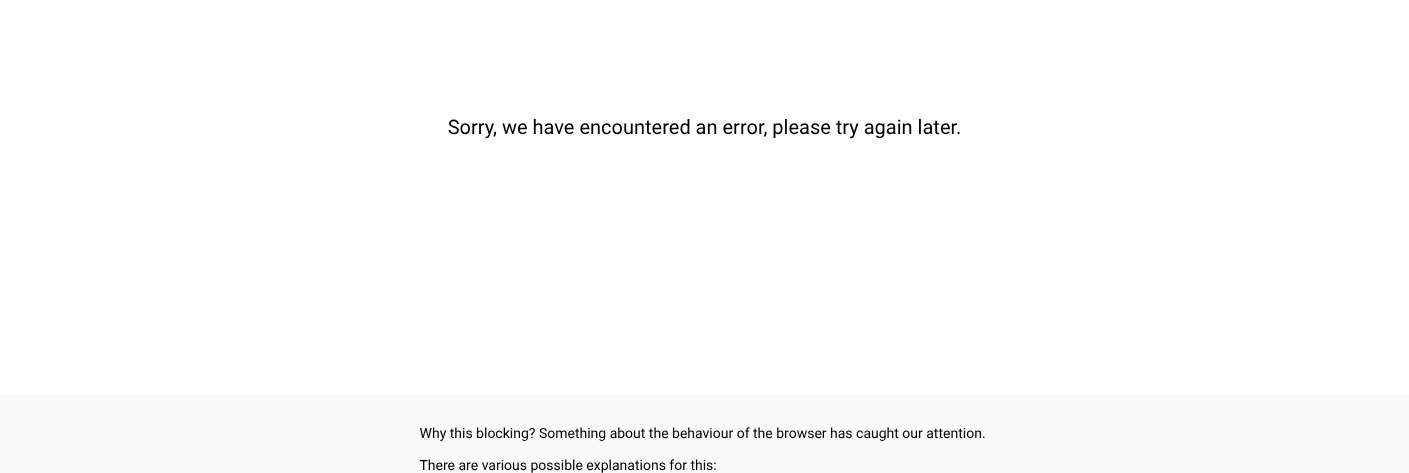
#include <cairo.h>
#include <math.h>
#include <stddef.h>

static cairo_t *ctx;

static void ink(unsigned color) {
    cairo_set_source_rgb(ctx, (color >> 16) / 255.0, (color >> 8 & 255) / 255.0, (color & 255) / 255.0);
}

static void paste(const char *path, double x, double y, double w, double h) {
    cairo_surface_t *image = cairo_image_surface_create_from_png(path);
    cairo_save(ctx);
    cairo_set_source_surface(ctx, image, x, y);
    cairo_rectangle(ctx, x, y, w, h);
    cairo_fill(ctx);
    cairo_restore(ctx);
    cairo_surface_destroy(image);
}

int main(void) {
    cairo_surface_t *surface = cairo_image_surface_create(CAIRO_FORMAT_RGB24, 1409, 473);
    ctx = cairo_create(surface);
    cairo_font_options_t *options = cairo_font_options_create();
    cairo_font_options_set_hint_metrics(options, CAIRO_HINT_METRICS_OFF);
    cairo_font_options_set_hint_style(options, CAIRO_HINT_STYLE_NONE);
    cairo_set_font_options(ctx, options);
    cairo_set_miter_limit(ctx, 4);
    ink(0xffffff);
    cairo_paint(ctx);
    paste("pic1.png", 0, 119, 1409, 354);
    cairo_surface_write_to_png(surface, "screenshot.png");
    cairo_font_options_destroy(options);
    cairo_destroy(ctx);
    cairo_surface_destroy(surface);
    return 0;
}
